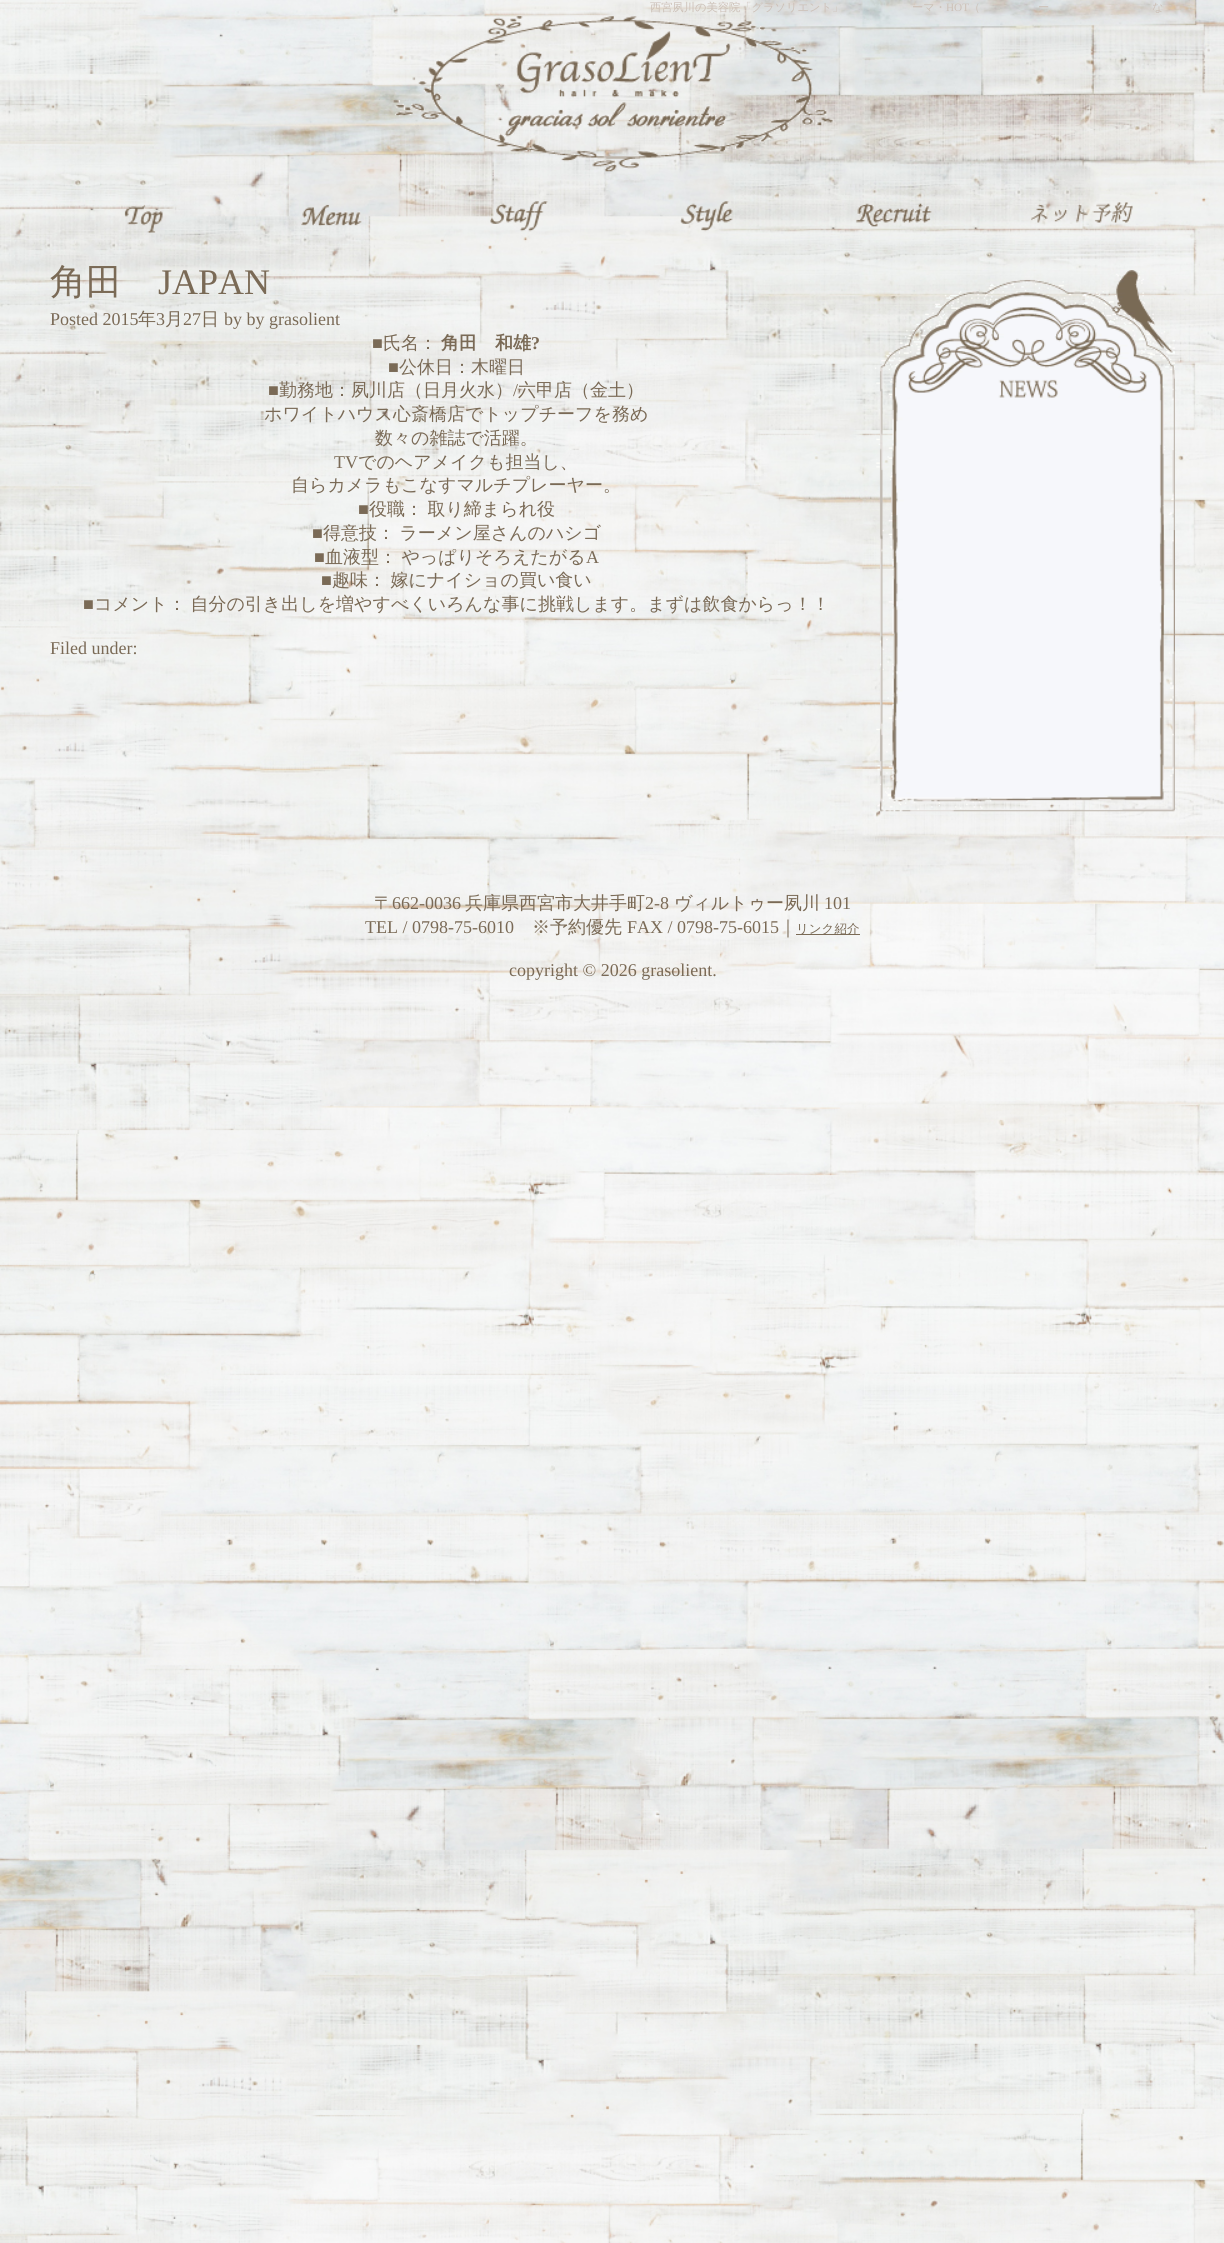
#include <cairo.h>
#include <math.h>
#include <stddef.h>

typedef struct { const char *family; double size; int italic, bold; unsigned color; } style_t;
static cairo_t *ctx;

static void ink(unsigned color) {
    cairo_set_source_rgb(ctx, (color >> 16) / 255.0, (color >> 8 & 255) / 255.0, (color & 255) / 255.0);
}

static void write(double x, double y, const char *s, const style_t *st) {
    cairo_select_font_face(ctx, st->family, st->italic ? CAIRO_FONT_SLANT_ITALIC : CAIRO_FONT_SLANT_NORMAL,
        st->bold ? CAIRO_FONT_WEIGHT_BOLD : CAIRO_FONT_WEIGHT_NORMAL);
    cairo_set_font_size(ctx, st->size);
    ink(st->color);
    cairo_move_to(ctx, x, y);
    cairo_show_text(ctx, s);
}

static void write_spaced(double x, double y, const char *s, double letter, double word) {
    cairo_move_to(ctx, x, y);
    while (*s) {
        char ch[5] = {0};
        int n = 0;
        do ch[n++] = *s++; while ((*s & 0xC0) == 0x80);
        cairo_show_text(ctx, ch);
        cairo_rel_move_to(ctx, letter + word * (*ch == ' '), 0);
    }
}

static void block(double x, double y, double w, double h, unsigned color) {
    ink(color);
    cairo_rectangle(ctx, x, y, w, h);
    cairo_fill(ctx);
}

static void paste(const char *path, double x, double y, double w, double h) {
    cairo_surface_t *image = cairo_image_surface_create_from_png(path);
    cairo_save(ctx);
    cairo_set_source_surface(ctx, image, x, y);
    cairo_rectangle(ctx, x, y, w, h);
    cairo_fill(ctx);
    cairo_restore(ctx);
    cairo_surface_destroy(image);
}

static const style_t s1 = {"WenQuanYi Zen Hei Medium", 11.25, 0, 0, 0xccc0b7};
static const style_t s2 = {"Liberation Serif", 11.25, 0, 0, 0xccc0b7};
static const style_t s3 = {"WenQuanYi Zen Hei Medium", 36, 0, 0, 0x7a6a56};
static const style_t s4 = {"Liberation Serif", 36, 0, 0, 0x7a6a56};
static const style_t s5 = {"Liberation Serif", 18, 0, 0, 0x7a6a56};
static const style_t s6 = {"WenQuanYi Zen Hei Medium", 18, 0, 0, 0x7a6a56};
static const style_t s7 = {"WenQuanYi Zen Hei", 18, 0, 1, 0x7a6a56};
static const style_t s8 = {"Liberation Serif", 18, 0, 1, 0x7a6a56};
static const style_t s9 = {"WenQuanYi Zen Hei Medium", 12.5, 0, 0, 0x7a6a56};

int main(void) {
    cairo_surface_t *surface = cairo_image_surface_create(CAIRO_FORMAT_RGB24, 1224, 2243);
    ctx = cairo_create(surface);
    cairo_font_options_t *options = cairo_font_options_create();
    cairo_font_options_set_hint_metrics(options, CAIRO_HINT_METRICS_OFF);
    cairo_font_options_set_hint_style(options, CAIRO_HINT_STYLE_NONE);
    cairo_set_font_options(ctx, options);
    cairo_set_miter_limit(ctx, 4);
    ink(0xffffff);
    cairo_paint(ctx);
    paste("pic1.png", 0, 0, 1224, 2243);
    write(650, 11, "西宮夙川の美容院「グラソリエント」", &s1);
    write(912, 11, "ーマ・", &s1);
    write(946, 11, "HOT", &s2);
    write(969, 11, "（", &s1);
    write(1038, 11, "ー", &s1);
    write(1152, 11, "な", &s1);
    paste("pic2.png", 393, 16, 440, 156);
    paste("pic3.png", 124, 204, 39, 29);
    paste("pic4.png", 301, 204, 61, 23);
    paste("pic5.png", 490, 201, 58, 31);
    paste("pic6.png", 680, 201, 53, 31);
    paste("pic7.png", 856, 203, 76, 24);
    paste("pic8.png", 1031, 202, 102, 21);
    write(50, 294, "角田", &s3);
    write(158, 294, "JAPAN", &s4);
    write(50, 325, "Posted 2015", &s5);
    write(138, 325, "年", &s6);
    write(156, 325, "3", &s5);
    write(165, 325, "月", &s6);
    write(183, 325, "27", &s5);
    write(201, 325, "日", &s6);
    write(224, 325, "by by grasolient", &s5);
    write(372, 349, "■", &s5);
    write(383, 349, "氏名：", &s6);
    write(441, 349, "角田　和雄", &s7);
    write(531, 349, "?", &s8);
    write(388, 373, "■", &s5);
    write(399, 373, "公休日：木曜日", &s6);
    write(268, 396, "■", &s5);
    write(279, 396, "勤務地：夙川店（日月火水）", &s6);
    write(513, 396, "/", &s5);
    write(518, 396, "六甲店（金土）", &s6);
    write(264, 420, "ホワイトハウス心斎橋店でトップチーフを務め", &s6);
    write(375, 444, "数々の雑誌で活躍。", &s6);
    write(334, 468, "TV", &s5);
    write(358, 468, "でのヘアメイクも担当し、", &s6);
    write(291, 491, "自らカメラもこなすマルチプレーヤー。", &s6);
    write(358, 515, "■", &s5);
    write(369, 515, "役職", &s6);
    write_spaced(405, 515, "： 取り締まられ役", 0, -1);
    write(312, 539, "■", &s5);
    write(323, 539, "得意技", &s6);
    write_spaced(377, 539, "： ラーメン屋さんのハシゴ", 0, -1);
    write(314, 563, "■", &s5);
    write(325, 563, "血液型", &s6);
    write_spaced(379, 563, "： やっぱりそろえたがる", 0, -1);
    write(586, 563, "A", &s5);
    write(321, 586, "■", &s5);
    write(332, 586, "趣味", &s6);
    write_spaced(368, 586, "： 嫁にナイショの買い食い", 0, -1);
    write(83, 610, "■", &s5);
    write(94, 610, "コメント", &s6);
    write_spaced(168, 610, "： 自分の引き出しを増やすべくいろんな事に挑戦します。まずは飲食からっ！！", 0, -1);
    write(50, 654, "Filed under:", &s5);
    paste("pic9.png", 875, 270, 300, 543);
    write(374, 909, "〒", &s6);
    write(392, 909, "662-0036", &s5);
    write(465, 909, "兵庫県西宮市大井手町", &s6);
    write(645, 909, "2-8", &s5);
    write(674, 909, "ヴィルトゥー夙川", &s6);
    write(824, 909, "101", &s5);
    write(365, 933, "TEL / 0798-75-6010", &s5);
    write(532, 933, "※予約優先", &s6);
    write(627, 933, "FAX / 0798-75-6015", &s5);
    write(779, 933, "｜", &s6);
    block(796, 934, 64, 1, 0x7a6a56);
    write(796, 933, "リンク紹介", &s9);
    write(509, 976, "copyright © 2026 grasolient.", &s5);
    cairo_surface_write_to_png(surface, "screenshot.png");
    cairo_font_options_destroy(options);
    cairo_destroy(ctx);
    cairo_surface_destroy(surface);
    return 0;
}
